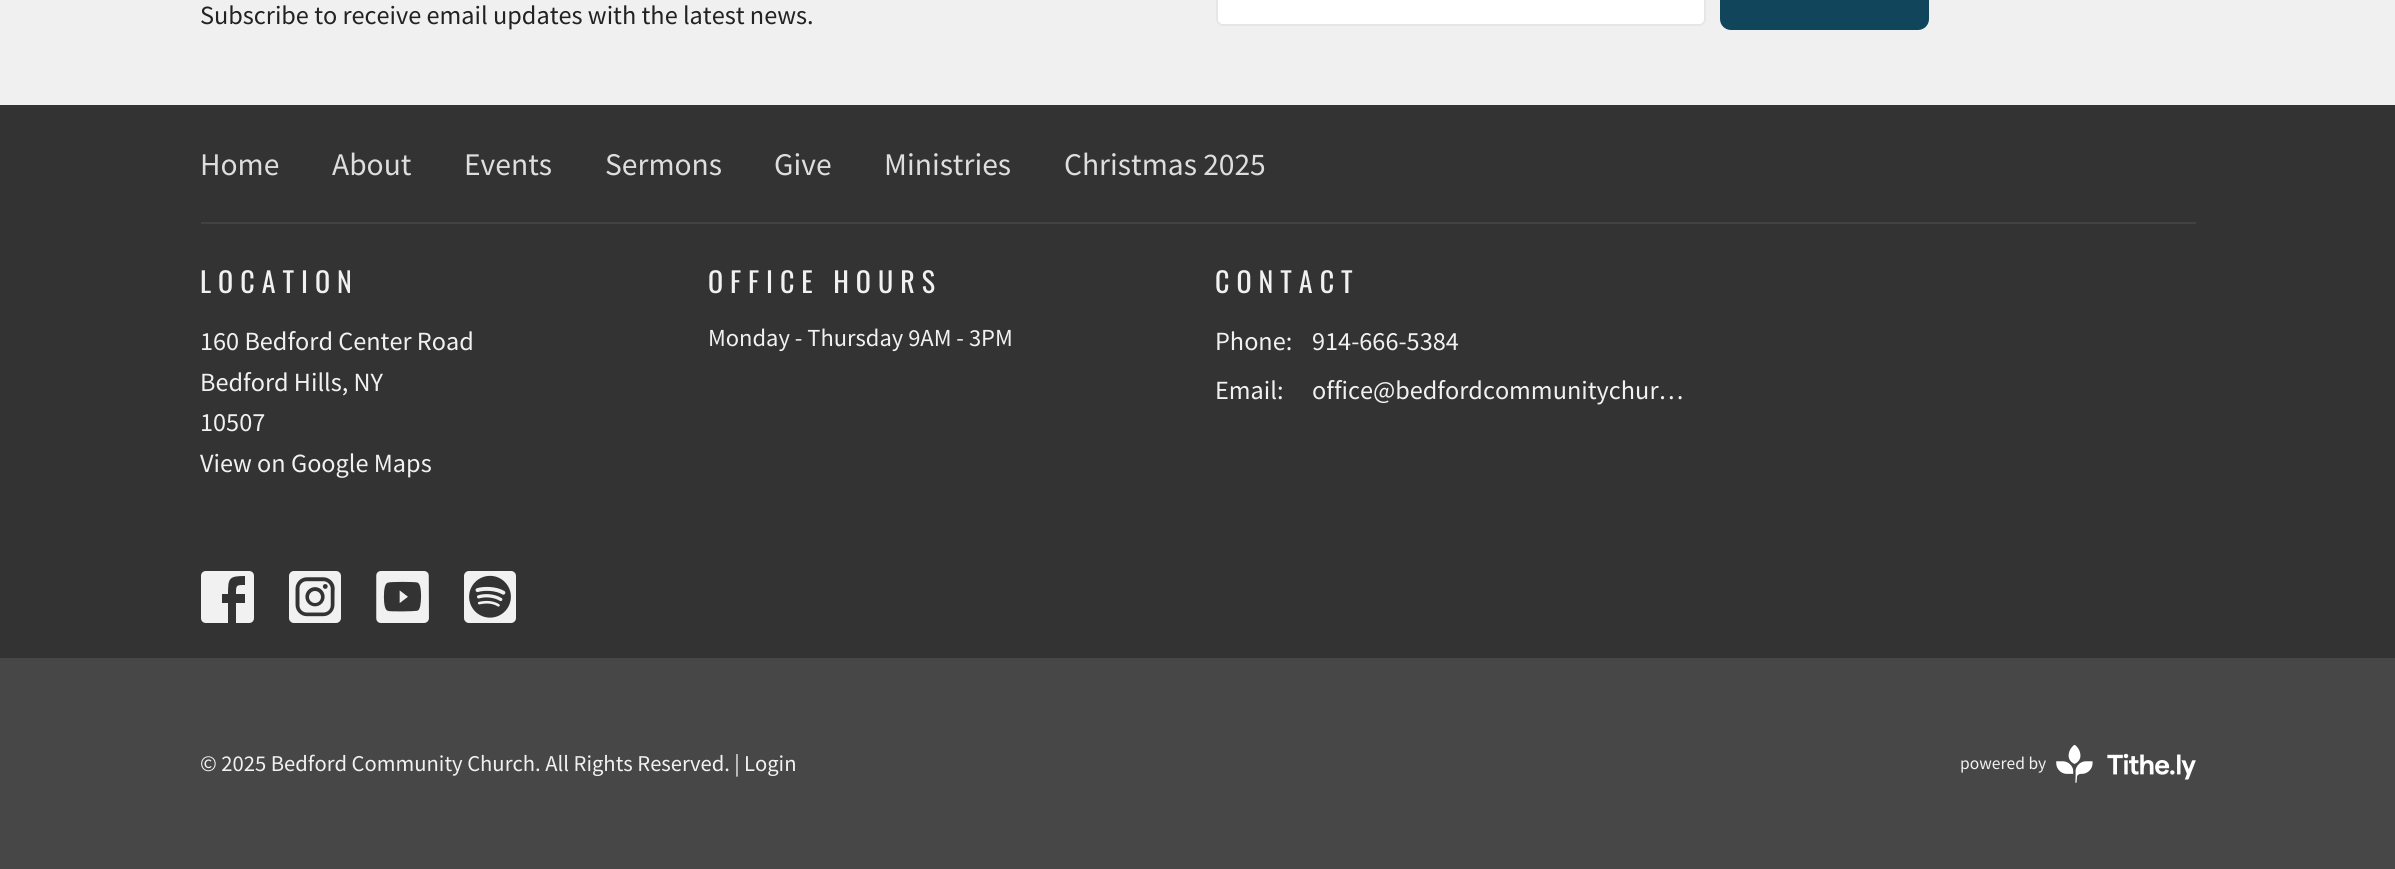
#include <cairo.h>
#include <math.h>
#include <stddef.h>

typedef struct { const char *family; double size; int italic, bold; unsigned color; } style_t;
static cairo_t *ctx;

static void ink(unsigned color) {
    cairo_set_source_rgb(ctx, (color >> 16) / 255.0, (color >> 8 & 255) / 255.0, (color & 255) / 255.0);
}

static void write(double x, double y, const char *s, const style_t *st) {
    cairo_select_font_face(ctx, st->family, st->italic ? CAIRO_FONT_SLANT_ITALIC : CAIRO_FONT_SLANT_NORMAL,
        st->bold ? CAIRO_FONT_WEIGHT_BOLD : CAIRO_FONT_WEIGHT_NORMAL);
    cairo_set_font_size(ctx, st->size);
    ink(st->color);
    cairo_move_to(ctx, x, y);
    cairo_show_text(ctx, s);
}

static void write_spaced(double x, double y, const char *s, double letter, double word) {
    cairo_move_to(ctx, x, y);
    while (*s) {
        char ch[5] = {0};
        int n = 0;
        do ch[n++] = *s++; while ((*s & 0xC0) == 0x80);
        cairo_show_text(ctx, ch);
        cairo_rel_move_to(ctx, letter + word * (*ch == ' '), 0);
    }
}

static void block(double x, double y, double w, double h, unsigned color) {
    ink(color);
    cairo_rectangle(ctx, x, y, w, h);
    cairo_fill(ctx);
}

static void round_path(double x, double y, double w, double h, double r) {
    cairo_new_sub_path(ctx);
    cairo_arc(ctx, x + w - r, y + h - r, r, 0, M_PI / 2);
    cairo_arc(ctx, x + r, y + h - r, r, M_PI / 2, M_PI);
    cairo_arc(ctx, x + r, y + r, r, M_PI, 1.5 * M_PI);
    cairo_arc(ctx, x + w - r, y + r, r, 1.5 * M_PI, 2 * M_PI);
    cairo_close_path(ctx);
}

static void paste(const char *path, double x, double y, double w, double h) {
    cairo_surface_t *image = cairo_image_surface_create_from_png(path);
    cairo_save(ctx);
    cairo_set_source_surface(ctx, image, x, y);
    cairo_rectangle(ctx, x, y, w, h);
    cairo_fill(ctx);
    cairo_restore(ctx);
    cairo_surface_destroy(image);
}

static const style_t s1 = {"Source Sans Pro", 26.25, 0, 0, 0x222222};
static const style_t s2 = {"Source Sans Pro", 31.5, 0, 0, 0xdedede};
static const style_t s3 = {"Source Sans Pro", 26.25, 0, 0, 0xf1f1f1};
static const style_t s4 = {"Source Sans Pro", 24.5, 0, 0, 0xf1f1f1};
static const style_t s5 = {"Source Sans Pro", 22.6, 0, 0, 0xf1f1f1};
static const style_t s6 = {"Source Sans Pro", 17.5, 0, 0, 0xf1f1f1};

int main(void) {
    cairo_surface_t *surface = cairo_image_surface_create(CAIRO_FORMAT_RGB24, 2395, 869);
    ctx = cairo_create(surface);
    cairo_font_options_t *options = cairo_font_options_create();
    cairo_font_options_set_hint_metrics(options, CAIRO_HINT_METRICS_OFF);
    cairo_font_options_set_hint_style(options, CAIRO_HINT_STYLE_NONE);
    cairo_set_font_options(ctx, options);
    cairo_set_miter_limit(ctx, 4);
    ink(0xf0f0f0);
    cairo_paint(ctx);
    write(200, 24, "Subscribe to receive email updates with the latest news.", &s1);
    ink(0xffffff);
    round_path(1217, -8, 488, 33, 6);
    cairo_fill_preserve(ctx);
    ink(0xe6e6e6);
    cairo_stroke(ctx);
    ink(0x10455b);
    round_path(1720, -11, 209, 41, 11);
    cairo_fill(ctx);
    block(0, 105, 2395, 553, 0x333333);
    write(200, 175, "Home", &s2);
    write(332, 175, "About", &s2);
    write(464, 175, "Events", &s2);
    write(605, 175, "Sermons", &s2);
    write(774, 175, "Give", &s2);
    write(884, 175, "Ministries", &s2);
    write(1064, 175, "Christmas 2025", &s2);
    block(201, 222, 1995, 2, 0x424242);
    cairo_select_font_face(ctx, "Oswald", CAIRO_FONT_SLANT_NORMAL, CAIRO_FONT_WEIGHT_NORMAL);
    cairo_set_font_size(ctx, 28);
    ink(0xf1f1f1);
    write_spaced(200, 293, "LOCATION", 7, 0);
    write(200, 350, "160 Bedford Center Road", &s3);
    write(200, 391, "Bedford Hills, NY", &s3);
    write(200, 431, "10507", &s3);
    write(200, 472, "View on Google Maps", &s3);
    cairo_select_font_face(ctx, "Oswald", CAIRO_FONT_SLANT_NORMAL, CAIRO_FONT_WEIGHT_NORMAL);
    cairo_set_font_size(ctx, 28);
    write_spaced(708, 293, "OFFICE HOURS", 7, 0);
    write(708, 346, "Monday - Thursday 9AM - 3PM", &s4);
    cairo_select_font_face(ctx, "Oswald", CAIRO_FONT_SLANT_NORMAL, CAIRO_FONT_WEIGHT_NORMAL);
    cairo_set_font_size(ctx, 28);
    write_spaced(1215, 293, "CONTACT", 7, 0);
    write(1215, 350, "Phone:", &s3);
    write(1312, 350, "914-666-5384", &s3);
    write(1215, 399, "Email:", &s3);
    write(1312, 399, "office@bedfordcommunitychur…", &s3);
    cairo_new_path(ctx);
    cairo_move_to(ctx, 245, 576);
    cairo_line_to(ctx, 245, 585);
    cairo_curve_to(ctx, 236, 585, 236, 585, 236, 594);
    cairo_line_to(ctx, 245, 594);
    cairo_line_to(ctx, 245, 603);
    cairo_line_to(ctx, 236, 603);
    cairo_line_to(ctx, 236, 623);
    cairo_line_to(ctx, 249, 623);
    cairo_curve_to(ctx, 252, 623, 254, 621, 254, 618);
    cairo_line_to(ctx, 254, 576);
    cairo_curve_to(ctx, 254, 573, 252, 571, 249, 571);
    cairo_line_to(ctx, 206, 571);
    cairo_curve_to(ctx, 203, 571, 201, 573, 201, 576);
    cairo_line_to(ctx, 201, 618);
    cairo_curve_to(ctx, 201, 621, 203, 623, 206, 623);
    cairo_line_to(ctx, 228, 623);
    cairo_line_to(ctx, 228, 603);
    cairo_line_to(ctx, 222, 603);
    cairo_line_to(ctx, 222, 594);
    cairo_line_to(ctx, 228, 594);
    cairo_curve_to(ctx, 228, 578, 229, 576, 245, 576);
    cairo_close_path(ctx);
    cairo_fill(ctx);
    paste("pic1.png", 289, 571, 52, 52);
    paste("pic2.png", 376, 571, 53, 52);
    paste("pic3.png", 464, 571, 52, 52);
    block(0, 658, 2395, 211, 0x474747);
    write(200, 771, "© 2025 Bedford Community Church. All Rights Reserved. |", &s5);
    write(744, 771, "Login", &s5);
    write(1960, 769, "powered by", &s6);
    paste("pic4.png", 2056, 745, 140, 38);
    cairo_surface_write_to_png(surface, "screenshot.png");
    cairo_font_options_destroy(options);
    cairo_destroy(ctx);
    cairo_surface_destroy(surface);
    return 0;
}
